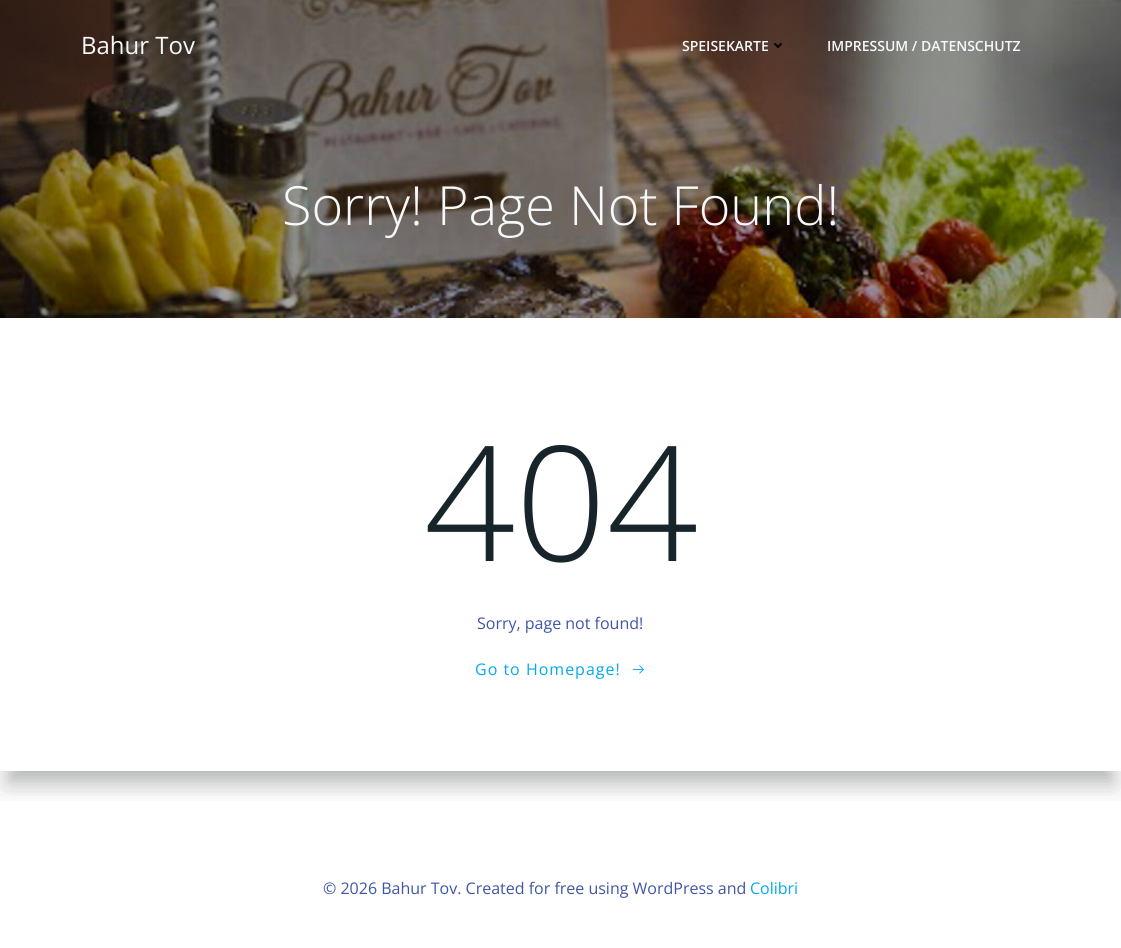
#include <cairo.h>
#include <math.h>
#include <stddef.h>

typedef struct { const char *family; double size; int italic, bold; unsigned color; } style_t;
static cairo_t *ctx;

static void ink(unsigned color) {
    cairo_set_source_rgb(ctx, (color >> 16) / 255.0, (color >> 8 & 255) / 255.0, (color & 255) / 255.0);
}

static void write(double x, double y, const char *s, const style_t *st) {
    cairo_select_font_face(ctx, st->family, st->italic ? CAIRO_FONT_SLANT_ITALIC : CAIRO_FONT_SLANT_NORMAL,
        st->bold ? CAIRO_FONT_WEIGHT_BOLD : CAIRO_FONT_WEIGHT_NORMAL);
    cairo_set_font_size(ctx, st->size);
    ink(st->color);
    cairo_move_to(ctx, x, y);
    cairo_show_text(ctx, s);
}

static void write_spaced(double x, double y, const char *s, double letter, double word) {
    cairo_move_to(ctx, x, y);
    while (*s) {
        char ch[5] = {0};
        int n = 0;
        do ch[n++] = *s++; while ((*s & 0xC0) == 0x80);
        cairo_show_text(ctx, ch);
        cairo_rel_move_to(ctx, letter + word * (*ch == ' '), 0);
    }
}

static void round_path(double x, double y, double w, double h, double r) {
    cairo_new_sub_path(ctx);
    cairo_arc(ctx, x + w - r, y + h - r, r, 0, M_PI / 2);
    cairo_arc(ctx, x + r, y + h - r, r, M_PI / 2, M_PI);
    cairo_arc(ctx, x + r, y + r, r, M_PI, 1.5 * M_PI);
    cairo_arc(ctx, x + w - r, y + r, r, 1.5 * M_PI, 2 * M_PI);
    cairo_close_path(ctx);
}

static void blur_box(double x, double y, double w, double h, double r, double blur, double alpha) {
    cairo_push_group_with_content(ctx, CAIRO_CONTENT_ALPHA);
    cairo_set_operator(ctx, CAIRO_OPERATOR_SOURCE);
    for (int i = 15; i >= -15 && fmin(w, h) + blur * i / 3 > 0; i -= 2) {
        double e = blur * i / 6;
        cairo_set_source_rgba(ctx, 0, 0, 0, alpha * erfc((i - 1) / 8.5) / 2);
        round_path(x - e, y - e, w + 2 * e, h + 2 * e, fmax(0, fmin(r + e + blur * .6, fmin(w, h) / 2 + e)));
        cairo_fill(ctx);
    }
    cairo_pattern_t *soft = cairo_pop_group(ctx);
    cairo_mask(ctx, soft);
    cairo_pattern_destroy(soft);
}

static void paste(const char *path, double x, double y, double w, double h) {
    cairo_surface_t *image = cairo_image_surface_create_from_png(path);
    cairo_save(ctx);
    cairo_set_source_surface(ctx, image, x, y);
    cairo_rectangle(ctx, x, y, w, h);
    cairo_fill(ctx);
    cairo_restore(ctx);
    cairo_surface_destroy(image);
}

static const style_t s1 = {"Open Sans", 24, 0, 0, 0xf6f8fa};
static const style_t s2 = {"Open Sans SemiBold", 14, 0, 0, 0xf6f8fa};
static const style_t s3 = {"Open Sans Light", 54, 0, 0, 0xf6f8fa};
static const style_t s4 = {"Open Sans Light", 160, 0, 0, 0x17252a};
static const style_t s5 = {"Open Sans", 16, 0, 0, 0x4055a9};
static const style_t s6 = {"Open Sans", 16, 0, 0, 0x03a9f4};

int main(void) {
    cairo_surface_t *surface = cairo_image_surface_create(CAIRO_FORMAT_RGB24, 1121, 948);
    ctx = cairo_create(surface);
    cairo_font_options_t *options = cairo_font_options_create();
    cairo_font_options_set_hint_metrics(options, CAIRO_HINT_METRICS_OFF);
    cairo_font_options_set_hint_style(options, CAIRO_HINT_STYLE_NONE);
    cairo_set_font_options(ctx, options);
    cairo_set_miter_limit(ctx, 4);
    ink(0xffffff);
    cairo_paint(ctx);
    paste("pic2.png", 0, 0, 1121, 318);
    cairo_save(ctx);
    cairo_rectangle(ctx, 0, 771, 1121, 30);
    cairo_clip(ctx);
    ink(0x000000);
    blur_box(0, 338, 1121, 453, 0, 15, 0.08);
    cairo_restore(ctx);
    cairo_save(ctx);
    cairo_rectangle(ctx, 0, 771, 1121, 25);
    cairo_clip(ctx);
    ink(0x313439);
    blur_box(10, 348, 1101, 433, 0, 10, 0.3);
    cairo_restore(ctx);
    cairo_set_source_rgba(ctx, 0, 0, 0, 0.35);
    cairo_rectangle(ctx, 0, 0, 1121, 318);
    cairo_fill(ctx);
    write(81, 54, "Bahur Tov", &s1);
    write(682, 51, "SPEISEKARTE", &s2);
    paste("pic1.png", 774, 43, 8, 5);
    write(827, 51, "IMPRESSUM / DATENSCHUTZ", &s2);
    write(282, 225, "Sorry! Page Not Found!", &s3);
    write(424, 561, "404", &s4);
    write(477, 629, "Sorry, page not found!", &s5);
    ink(0x03a9f4);
    write_spaced(475, 675, "Go to Homepage!", 1, 0);
    paste("pic3.png", 632, 665, 12, 9);
    write(323, 894, "© 2026 Bahur Tov. Created for free using WordPress and", &s5);
    write(750, 894, "Colibri", &s6);
    cairo_surface_write_to_png(surface, "screenshot.png");
    cairo_font_options_destroy(options);
    cairo_destroy(ctx);
    cairo_surface_destroy(surface);
    return 0;
}
